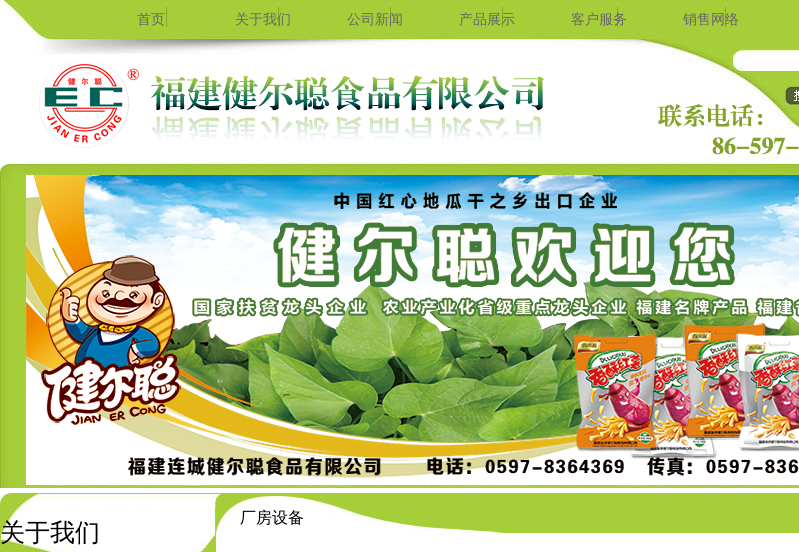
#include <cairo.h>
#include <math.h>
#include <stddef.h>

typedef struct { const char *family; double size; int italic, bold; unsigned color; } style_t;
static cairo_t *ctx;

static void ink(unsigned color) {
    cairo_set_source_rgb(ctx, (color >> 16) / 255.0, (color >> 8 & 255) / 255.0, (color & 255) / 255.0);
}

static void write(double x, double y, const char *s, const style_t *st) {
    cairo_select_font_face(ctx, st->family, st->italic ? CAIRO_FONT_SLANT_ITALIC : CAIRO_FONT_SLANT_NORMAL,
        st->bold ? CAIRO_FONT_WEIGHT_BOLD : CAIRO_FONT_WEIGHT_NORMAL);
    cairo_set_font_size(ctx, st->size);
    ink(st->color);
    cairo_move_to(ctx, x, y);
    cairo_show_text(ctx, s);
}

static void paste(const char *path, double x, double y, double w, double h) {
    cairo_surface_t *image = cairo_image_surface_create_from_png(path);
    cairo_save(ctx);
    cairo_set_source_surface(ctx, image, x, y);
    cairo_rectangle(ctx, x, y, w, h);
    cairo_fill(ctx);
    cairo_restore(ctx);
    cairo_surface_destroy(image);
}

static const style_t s1 = {"WenQuanYi Zen Hei Medium", 14, 0, 0, 0x666666};
static const style_t s2 = {"WenQuanYi Zen Hei Medium", 16, 0, 0, 0x000000};
static const style_t s3 = {"WenQuanYi Zen Hei Medium", 25, 0, 0, 0x000000};

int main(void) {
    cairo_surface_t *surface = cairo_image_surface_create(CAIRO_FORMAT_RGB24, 799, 552);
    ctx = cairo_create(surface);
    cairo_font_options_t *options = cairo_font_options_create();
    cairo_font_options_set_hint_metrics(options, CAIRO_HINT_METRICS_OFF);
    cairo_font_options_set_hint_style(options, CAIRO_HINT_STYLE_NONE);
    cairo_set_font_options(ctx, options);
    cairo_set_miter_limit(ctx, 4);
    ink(0xffffff);
    cairo_paint(ctx);
    paste("pic1.png", 0, 0, 799, 39);
    write(137, 24, "首页", &s1);
    write(235, 24, "关于我们", &s1);
    write(347, 24, "公司新闻", &s1);
    write(459, 24, "产品展示", &s1);
    write(571, 24, "客户服务", &s1);
    write(683, 24, "销售网络", &s1);
    paste("pic2.png", 26, 39, 773, 125);
    paste("pic3.png", 0, 164, 799, 324);
    paste("pic4.png", 26, 175, 773, 310);
    paste("pic5.png", 220, 493, 579, 40);
    write(240, 523, "厂房设备", &s2);
    paste("pic6.png", 0, 493, 220, 59);
    write(0, 541, "关于我们", &s3);
    cairo_surface_write_to_png(surface, "screenshot.png");
    cairo_font_options_destroy(options);
    cairo_destroy(ctx);
    cairo_surface_destroy(surface);
    return 0;
}
